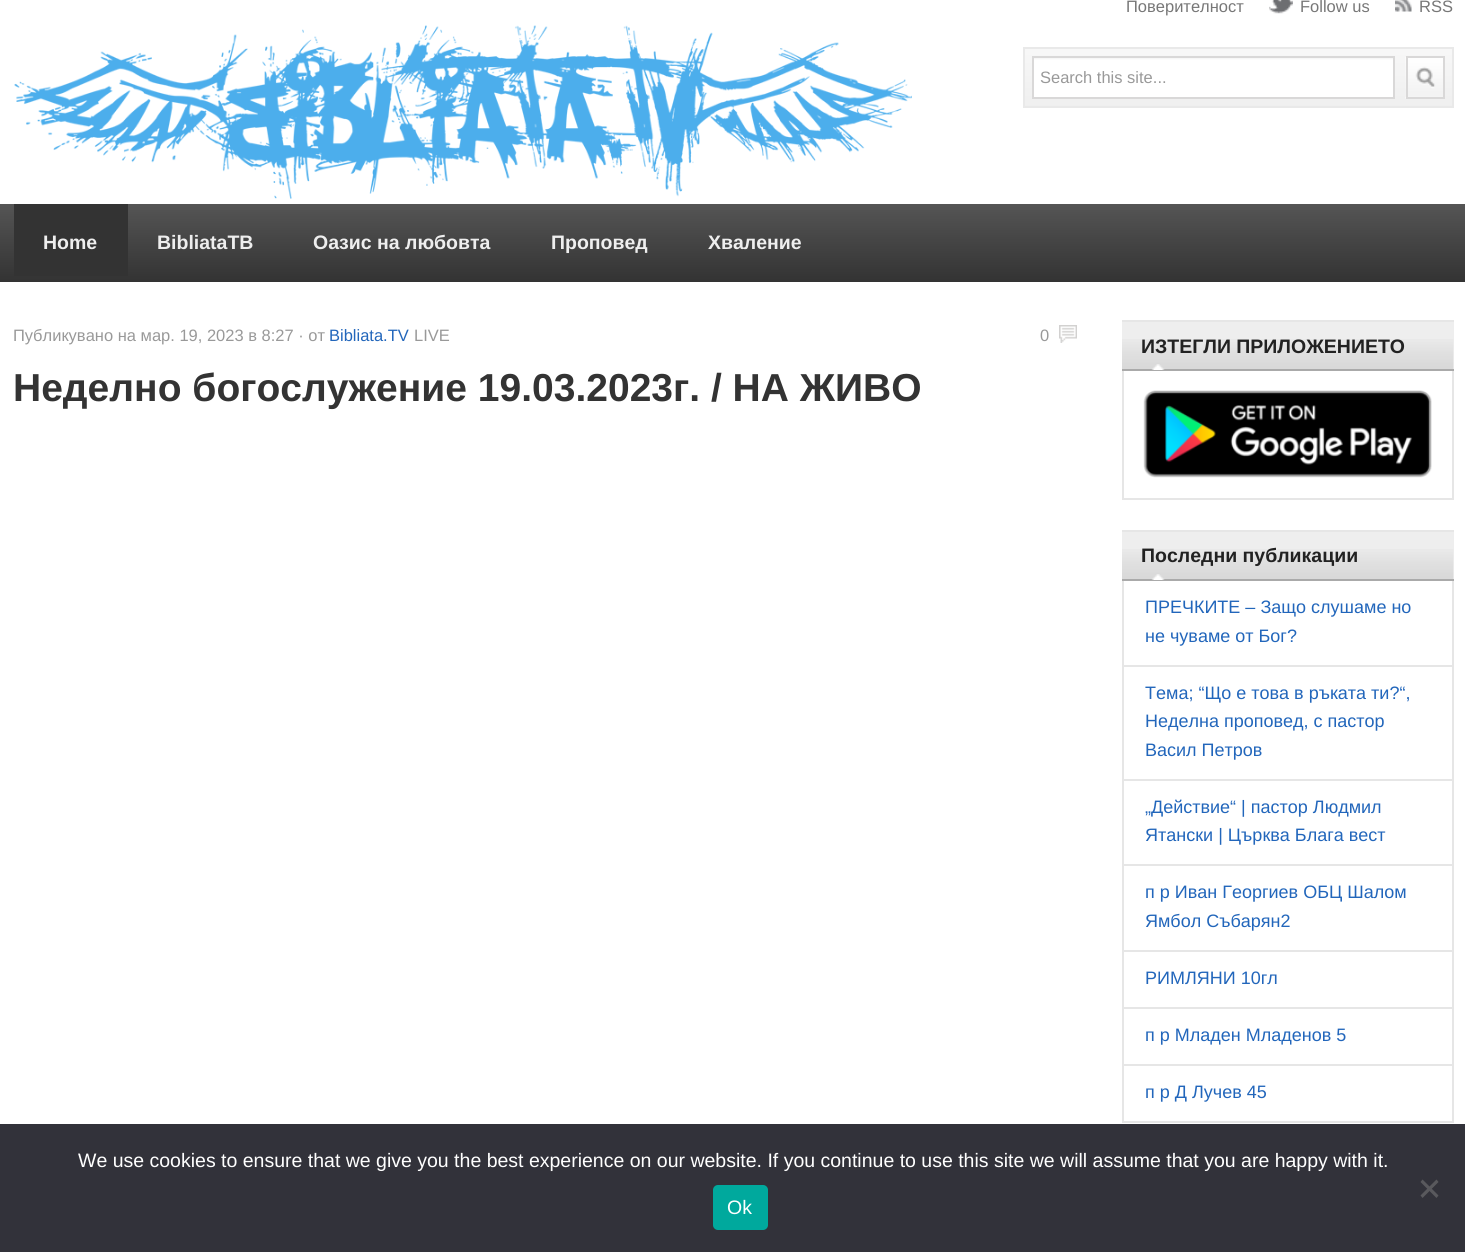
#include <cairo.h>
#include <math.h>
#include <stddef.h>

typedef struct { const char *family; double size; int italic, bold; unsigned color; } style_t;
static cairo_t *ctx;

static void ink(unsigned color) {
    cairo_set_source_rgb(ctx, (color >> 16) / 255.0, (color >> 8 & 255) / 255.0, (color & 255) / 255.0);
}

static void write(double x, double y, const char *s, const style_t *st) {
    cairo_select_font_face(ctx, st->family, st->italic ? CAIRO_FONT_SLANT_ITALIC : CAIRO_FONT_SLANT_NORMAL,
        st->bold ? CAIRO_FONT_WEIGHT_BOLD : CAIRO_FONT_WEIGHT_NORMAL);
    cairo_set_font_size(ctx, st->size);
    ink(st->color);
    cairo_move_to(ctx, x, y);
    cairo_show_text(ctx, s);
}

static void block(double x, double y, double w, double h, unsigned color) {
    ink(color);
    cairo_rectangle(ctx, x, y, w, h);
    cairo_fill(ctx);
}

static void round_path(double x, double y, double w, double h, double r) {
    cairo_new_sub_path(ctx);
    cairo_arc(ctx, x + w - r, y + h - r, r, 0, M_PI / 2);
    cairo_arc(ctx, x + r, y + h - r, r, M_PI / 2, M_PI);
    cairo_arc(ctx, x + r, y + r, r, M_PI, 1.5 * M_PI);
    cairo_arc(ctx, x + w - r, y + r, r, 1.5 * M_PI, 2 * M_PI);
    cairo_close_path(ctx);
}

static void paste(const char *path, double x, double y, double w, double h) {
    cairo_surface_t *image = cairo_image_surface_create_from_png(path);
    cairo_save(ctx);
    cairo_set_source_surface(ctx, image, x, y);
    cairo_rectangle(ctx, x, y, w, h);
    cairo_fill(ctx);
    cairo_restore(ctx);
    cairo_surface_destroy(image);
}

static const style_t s1 = {"Liberation Sans", 16.5, 0, 0, 0x777777};
static const style_t s2 = {"Liberation Sans", 16.5, 0, 0, 0x999999};
static const style_t s3 = {"Liberation Sans", 19.5, 0, 1, 0xeeeeee};
static const style_t s4 = {"Liberation Sans", 16.5, 0, 0, 0x2266bb};
static const style_t s5 = {"Liberation Sans", 39, 0, 1, 0x333333};
static const style_t s6 = {"Liberation Sans", 19.5, 0, 1, 0x222222};
static const style_t s7 = {"Liberation Sans", 18, 0, 0, 0x2266bb};
static const style_t s8 = {"Liberation Sans", 19.5, 0, 0, 0xffffff};

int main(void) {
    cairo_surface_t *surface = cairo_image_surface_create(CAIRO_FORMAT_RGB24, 1465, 1252);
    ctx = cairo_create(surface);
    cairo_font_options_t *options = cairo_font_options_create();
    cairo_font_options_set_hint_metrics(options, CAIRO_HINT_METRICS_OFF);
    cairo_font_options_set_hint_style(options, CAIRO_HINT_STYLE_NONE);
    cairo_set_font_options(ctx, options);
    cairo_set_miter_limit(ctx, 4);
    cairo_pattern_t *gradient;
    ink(0xffffff);
    cairo_paint(ctx);
    paste("pic1.png", 14, 25, 898, 174);
    write(1126, 12, "Поверителност", &s1);
    paste("pic2.png", 1269, 0, 24, 14);
    write(1300, 12, "Follow us", &s1);
    paste("pic3.png", 1395, 0, 17, 12);
    write(1419, 12, "RSS", &s1);
    paste("pic4.png", 1025, 49, 427, 57);
    cairo_rectangle(ctx, 1024, 48, 429, 59);
    ink(0xe9e9e9);
    cairo_stroke(ctx);
    paste("pic5.png", 1034, 58, 359, 39);
    cairo_rectangle(ctx, 1033, 57, 361, 41);
    ink(0xd9d8d8);
    cairo_stroke(ctx);
    write(1040, 83, "Search this site...", &s2);
    paste("pic6.png", 1405, 57, 38, 42);
    cairo_rectangle(ctx, 1407, 57, 37, 41);
    ink(0xd9d8d8);
    cairo_stroke(ctx);
    gradient = cairo_pattern_create_linear(0, 204, 0, 282);
    cairo_pattern_add_color_stop_rgba(gradient, 0, 0.333, 0.333, 0.333, 1);
    cairo_pattern_add_color_stop_rgba(gradient, 1, 0.2, 0.2, 0.2, 1);
    cairo_set_source(ctx, gradient);
    cairo_pattern_destroy(gradient);
    cairo_rectangle(ctx, 0, 204, 1465, 78);
    cairo_fill(ctx);
    block(14, 204, 114, 72, 0x333333);
    write(43, 249, "Home", &s3);
    write(157, 249, "BibliataTB", &s3);
    write(313, 249, "Оазис на любовта", &s3);
    write(551, 249, "Проповед", &s3);
    write(708, 249, "Хваление", &s3);
    write(13, 341, "Публикувано на мар. 19, 2023 в 8:27 · от", &s2);
    write(329, 341, "Bibliata.TV", &s4);
    write(414, 341, "LIVE", &s2);
    write(1040, 341, "0", &s2);
    paste("pic7.png", 1059, 325, 18, 18);
    write(13, 401, "Неделно богослужение 19.03.2023г. / НА ЖИВО", &s5);
    block(1122, 322, 332, 47, 0xeeeeee);
    paste("pic8.png", 1122, 339, 332, 30);
    block(1122, 320, 332, 2, 0xe6e6e6);
    block(1122, 369, 332, 2, 0xaaaaaa);
    paste("pic9.png", 1151, 364, 14, 6);
    write(1141, 353, "ИЗТЕГЛИ ПРИЛОЖЕНИЕТО", &s6);
    block(1452, 371, 2, 129, 0xe6e6e6);
    block(1122, 498, 332, 2, 0xe6e6e6);
    block(1122, 371, 2, 129, 0xe6e6e6);
    paste("pic10.png", 1143, 390, 289, 88);
    block(1122, 532, 332, 47, 0xeeeeee);
    paste("pic8.png", 1122, 549, 332, 30);
    block(1122, 530, 332, 2, 0xe6e6e6);
    block(1122, 579, 332, 2, 0xaaaaaa);
    paste("pic9.png", 1151, 574, 14, 6);
    write(1141, 562, "Последни публикации", &s6);
    block(1452, 581, 2, 541, 0xe6e6e6);
    block(1122, 1121, 332, 2, 0xe6e6e6);
    block(1122, 581, 2, 541, 0xe6e6e6);
    block(1124, 665, 328, 2, 0xe6e6e6);
    write(1145, 613, "ПРЕЧКИТЕ – Защо слушаме но", &s7);
    write(1145, 642, "не чуваме от Бог?", &s7);
    block(1124, 779, 328, 2, 0xe6e6e6);
    write(1145, 699, "Тема; “Що е това в ръката ти?“,", &s7);
    write(1145, 727, "Неделна проповед, с пастор", &s7);
    write(1145, 756, "Васил Петров", &s7);
    block(1124, 864, 328, 2, 0xe6e6e6);
    write(1145, 813, "„Действие“ | пастор Людмил", &s7);
    write(1145, 841, "Ятански | Църква Блага вест", &s7);
    block(1124, 950, 328, 2, 0xe6e6e6);
    write(1145, 898, "п р Иван Георгиев ОБЦ Шалом", &s7);
    write(1145, 927, "Ямбол Събарян2", &s7);
    block(1124, 1007, 328, 2, 0xe6e6e6);
    write(1145, 984, "РИМЛЯНИ 10гл", &s7);
    block(1124, 1064, 328, 2, 0xe6e6e6);
    write(1145, 1041, "п р Младен Младенов 5", &s7);
    write(1145, 1098, "п р Д Лучев 45", &s7);
    block(0, 1124, 1465, 128, 0x32323a);
    write(78, 1167, "We use cookies to ensure that we give you the best experience on our website. If you continue to use this site we will assume that you are happy with it.", &s8);
    ink(0x59595d);
    cairo_new_path(ctx);
    cairo_move_to(ctx, 1436.5, 1179.5);
    cairo_line_to(ctx, 1438.5, 1182);
    cairo_line_to(ctx, 1422.5, 1198);
    cairo_line_to(ctx, 1420.5, 1195.5);
    cairo_close_path(ctx);
    cairo_fill(ctx);
    cairo_new_path(ctx);
    cairo_move_to(ctx, 1420.5, 1182);
    cairo_line_to(ctx, 1422.5, 1179.5);
    cairo_line_to(ctx, 1438.5, 1195.5);
    cairo_line_to(ctx, 1436.5, 1198);
    cairo_close_path(ctx);
    cairo_fill(ctx);
    ink(0x00a99d);
    round_path(713, 1185, 55, 45, 5);
    cairo_fill(ctx);
    write(727, 1214, "Ok", &s8);
    cairo_surface_write_to_png(surface, "screenshot.png");
    cairo_font_options_destroy(options);
    cairo_destroy(ctx);
    cairo_surface_destroy(surface);
    return 0;
}
